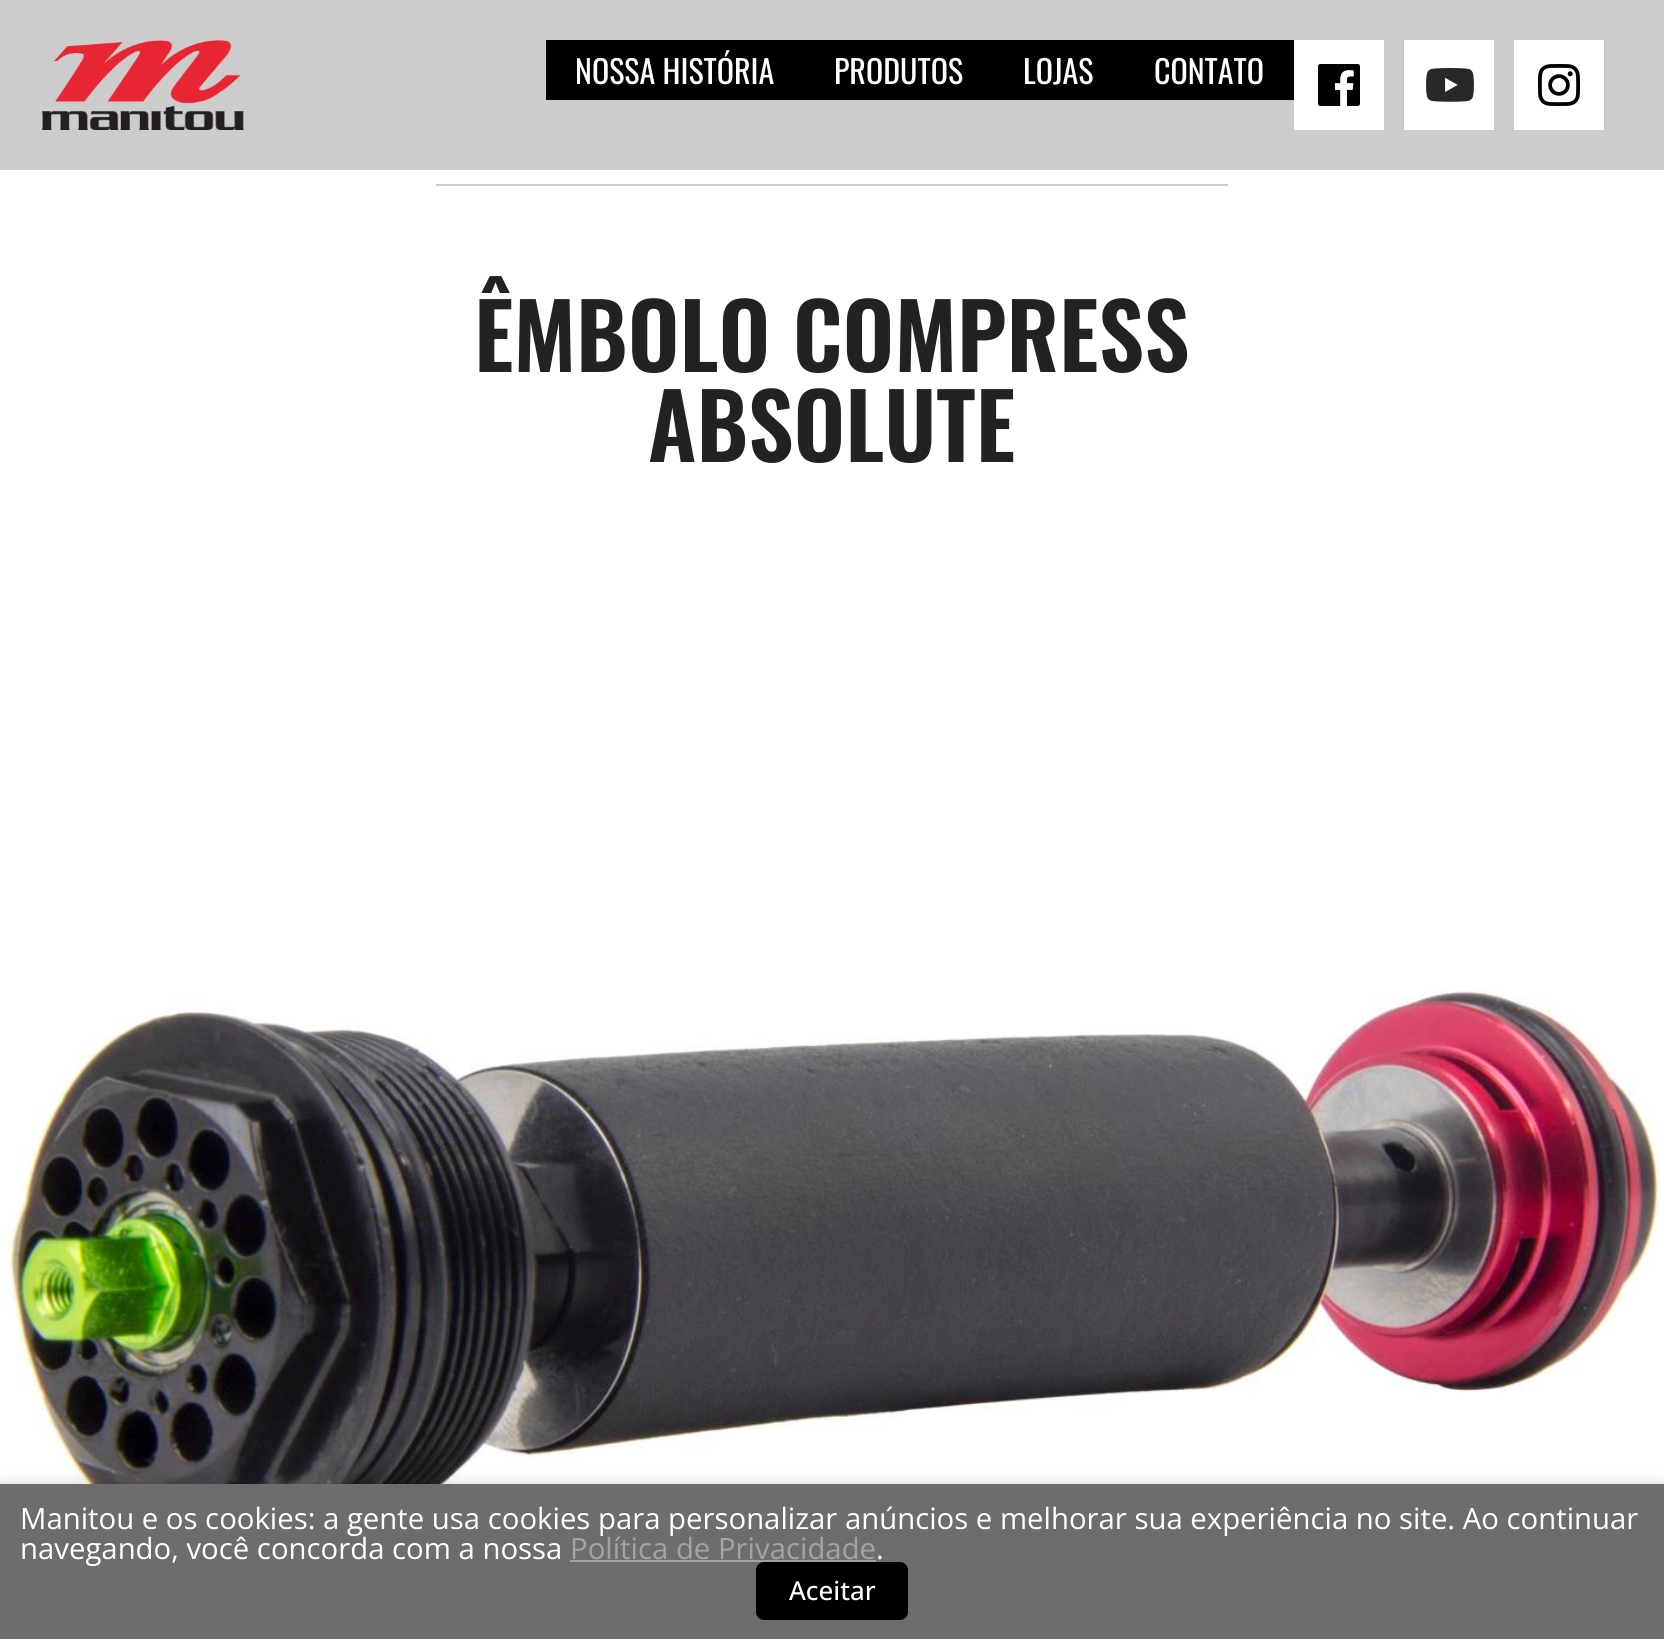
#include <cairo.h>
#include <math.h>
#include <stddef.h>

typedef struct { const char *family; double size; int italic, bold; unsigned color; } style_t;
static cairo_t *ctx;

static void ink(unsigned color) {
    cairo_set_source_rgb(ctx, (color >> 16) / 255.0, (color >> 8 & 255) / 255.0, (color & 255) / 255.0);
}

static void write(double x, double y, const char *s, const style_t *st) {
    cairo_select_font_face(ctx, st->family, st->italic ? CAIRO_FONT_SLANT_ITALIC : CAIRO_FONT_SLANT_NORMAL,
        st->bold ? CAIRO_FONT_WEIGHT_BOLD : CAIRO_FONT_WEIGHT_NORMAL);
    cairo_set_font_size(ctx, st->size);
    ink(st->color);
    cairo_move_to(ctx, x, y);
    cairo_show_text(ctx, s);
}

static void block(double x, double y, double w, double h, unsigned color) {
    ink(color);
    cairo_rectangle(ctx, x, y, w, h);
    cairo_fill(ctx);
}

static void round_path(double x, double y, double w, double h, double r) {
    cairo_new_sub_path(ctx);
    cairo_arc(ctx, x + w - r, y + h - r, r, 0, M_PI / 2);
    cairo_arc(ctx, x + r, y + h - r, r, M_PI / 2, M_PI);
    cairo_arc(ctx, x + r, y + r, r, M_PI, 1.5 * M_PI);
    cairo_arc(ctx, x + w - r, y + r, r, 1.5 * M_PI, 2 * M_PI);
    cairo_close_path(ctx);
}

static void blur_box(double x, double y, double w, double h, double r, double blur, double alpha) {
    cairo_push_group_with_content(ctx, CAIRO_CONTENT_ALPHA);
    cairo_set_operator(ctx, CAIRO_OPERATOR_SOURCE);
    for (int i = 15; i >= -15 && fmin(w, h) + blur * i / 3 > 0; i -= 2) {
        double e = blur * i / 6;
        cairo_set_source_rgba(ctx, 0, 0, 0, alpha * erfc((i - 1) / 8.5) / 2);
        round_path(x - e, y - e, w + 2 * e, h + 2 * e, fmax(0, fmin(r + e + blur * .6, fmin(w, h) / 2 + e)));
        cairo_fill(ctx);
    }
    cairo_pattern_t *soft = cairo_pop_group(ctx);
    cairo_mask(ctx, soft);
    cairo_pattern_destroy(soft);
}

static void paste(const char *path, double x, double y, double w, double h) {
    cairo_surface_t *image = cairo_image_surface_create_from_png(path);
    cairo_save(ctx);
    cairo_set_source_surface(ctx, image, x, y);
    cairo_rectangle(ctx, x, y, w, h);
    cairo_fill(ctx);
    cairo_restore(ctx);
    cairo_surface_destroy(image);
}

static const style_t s1 = {"Oswald", 32, 0, 0, 0xffffff};
static const style_t s2 = {"Oswald SemiBold", 90, 0, 0, 0x222222};
static const style_t s3 = {"Open Sans", 29.33, 0, 0, 0xffffff};
static const style_t s4 = {"Open Sans", 29.33, 0, 0, 0xa3a3a3};
static const style_t s5 = {"Open Sans Medium", 26, 0, 0, 0xffffff};

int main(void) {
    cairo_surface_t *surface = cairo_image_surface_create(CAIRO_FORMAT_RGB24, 1664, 1639);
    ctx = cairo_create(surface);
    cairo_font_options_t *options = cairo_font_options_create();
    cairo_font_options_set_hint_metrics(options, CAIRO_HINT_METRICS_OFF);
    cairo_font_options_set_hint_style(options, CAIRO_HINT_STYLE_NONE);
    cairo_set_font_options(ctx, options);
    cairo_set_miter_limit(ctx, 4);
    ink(0xffffff);
    cairo_paint(ctx);
    block(0, 0, 1664, 170, 0xcccccc);
    paste("pic1.png", 41, 40, 204, 90);
    block(546, 40, 748, 60, 0x000000);
    write(575, 84, "NOSSA HISTÓRIA", &s1);
    write(834, 84, "PRODUTOS", &s1);
    write(1023, 84, "LOJAS", &s1);
    write(1154, 84, "CONTATO", &s1);
    block(1294, 40, 90, 90, 0xffffff);
    paste("pic2.png", 1318, 64, 42, 42);
    block(1404, 40, 90, 90, 0xffffff);
    paste("pic3.png", 1426, 68, 48, 34);
    block(1514, 40, 90, 90, 0xffffff);
    paste("pic4.png", 1538, 64, 42, 42);
    block(436, 184, 792, 2, 0xcccccc);
    write(474, 372, "ÊMBOLO COMPRESS", &s2);
    write(648, 462, "ABSOLUTE", &s2);
    paste("pic5.png", 0, 990, 1663, 494);
    ink(0x000000);
    blur_box(0, 1494, 1664, 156, 0, 10, 0.5);
    block(0, 1484, 1664, 155, 0x6d6d6d);
    write(20, 1529, "Manitou e os cookies: a gente usa cookies para personalizar anúncios e melhorar sua experiência no site. Ao continuar", &s3);
    write(20, 1559, "navegando, você concorda com a nossa", &s3);
    write(570, 1559, "Política de Privacidade", &s4);
    block(570, 1560, 306, 2, 0xa3a3a3);
    write(876, 1559, ".", &s3);
    ink(0x000000);
    round_path(756, 1562, 152, 58, 8);
    cairo_fill(ctx);
    write(789, 1600, "Aceitar", &s5);
    cairo_surface_write_to_png(surface, "screenshot.png");
    cairo_font_options_destroy(options);
    cairo_destroy(ctx);
    cairo_surface_destroy(surface);
    return 0;
}
